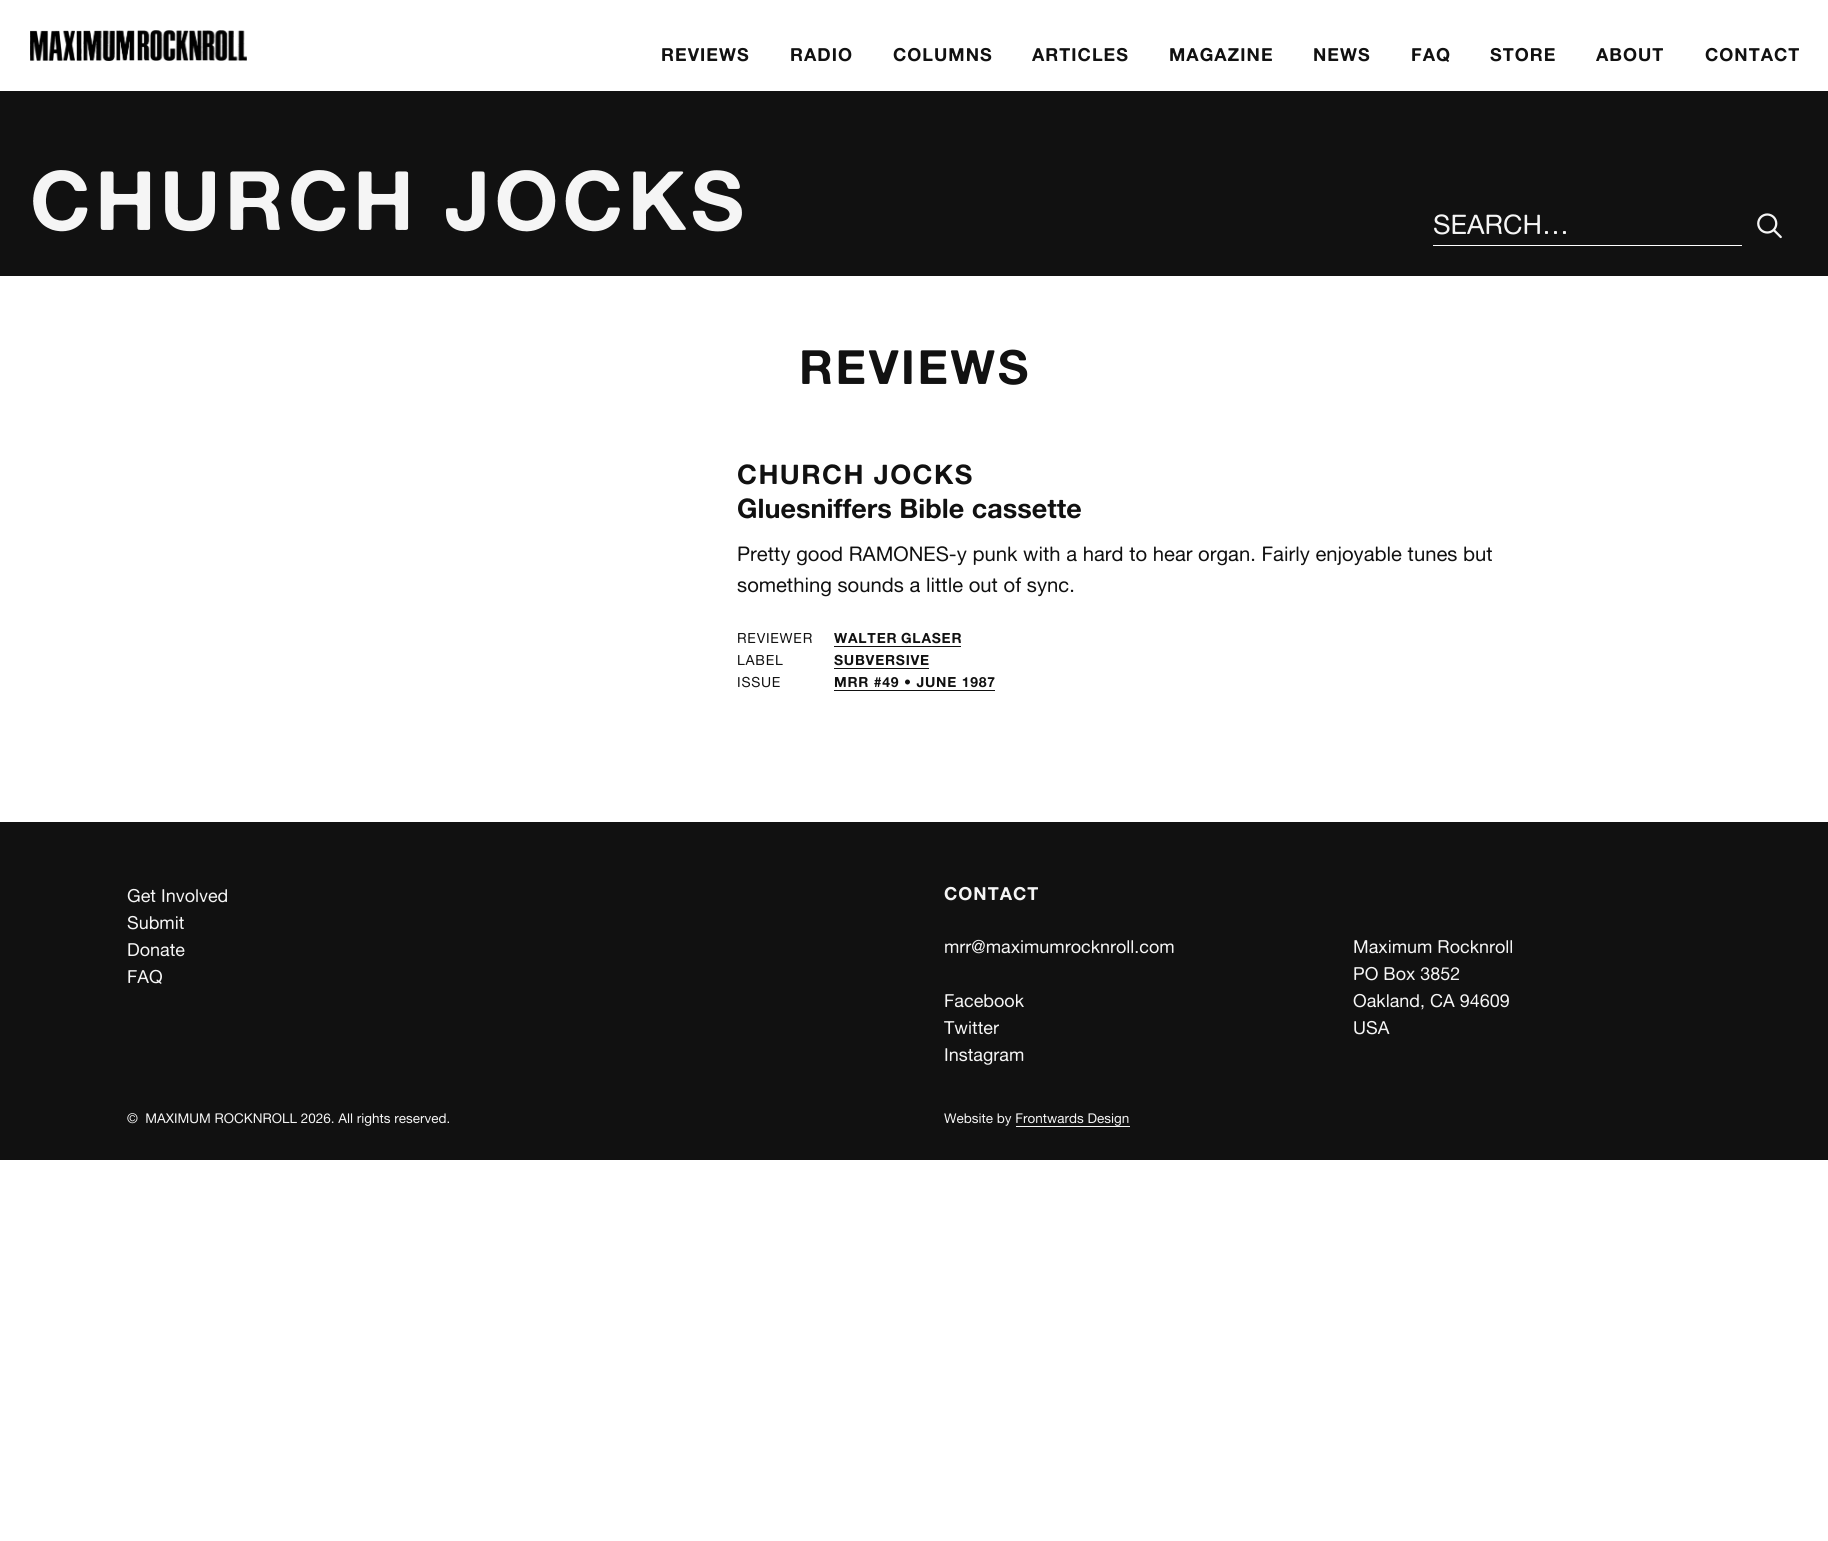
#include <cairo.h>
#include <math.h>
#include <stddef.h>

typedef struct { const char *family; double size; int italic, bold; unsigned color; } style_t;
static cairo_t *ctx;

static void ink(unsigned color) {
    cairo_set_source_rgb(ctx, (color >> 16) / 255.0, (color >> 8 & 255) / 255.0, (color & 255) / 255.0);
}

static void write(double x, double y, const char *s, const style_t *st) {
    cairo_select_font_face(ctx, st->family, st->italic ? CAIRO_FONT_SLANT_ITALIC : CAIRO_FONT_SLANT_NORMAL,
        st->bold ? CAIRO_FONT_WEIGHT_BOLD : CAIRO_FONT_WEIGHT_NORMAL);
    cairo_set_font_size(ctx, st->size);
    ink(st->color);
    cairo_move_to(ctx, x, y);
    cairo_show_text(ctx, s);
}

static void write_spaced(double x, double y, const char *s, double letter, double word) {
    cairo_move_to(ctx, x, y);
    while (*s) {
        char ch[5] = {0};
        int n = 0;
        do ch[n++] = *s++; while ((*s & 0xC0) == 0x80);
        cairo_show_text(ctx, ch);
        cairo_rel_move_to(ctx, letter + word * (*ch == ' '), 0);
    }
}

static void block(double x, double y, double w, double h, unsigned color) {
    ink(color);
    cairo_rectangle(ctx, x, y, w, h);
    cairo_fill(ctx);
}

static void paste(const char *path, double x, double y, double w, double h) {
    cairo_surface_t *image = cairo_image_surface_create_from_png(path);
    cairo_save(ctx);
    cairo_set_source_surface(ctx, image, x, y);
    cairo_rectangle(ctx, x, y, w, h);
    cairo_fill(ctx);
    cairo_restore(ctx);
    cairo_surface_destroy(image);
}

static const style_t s1 = {"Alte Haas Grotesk", 27, 0, 0, 0xf5f5f5};
static const style_t s2 = {"Alte Haas Grotesk", 27, 0, 1, 0x111111};
static const style_t s3 = {"Alte Haas Grotesk", 20.25, 0, 0, 0x111111};
static const style_t s4 = {"Alte Haas Grotesk", 18, 0, 0, 0xf5f5f5};
static const style_t s5 = {"Alte Haas Grotesk", 13.5, 0, 0, 0xf5f5f5};

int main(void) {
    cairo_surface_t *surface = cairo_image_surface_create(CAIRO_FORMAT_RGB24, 1828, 1541);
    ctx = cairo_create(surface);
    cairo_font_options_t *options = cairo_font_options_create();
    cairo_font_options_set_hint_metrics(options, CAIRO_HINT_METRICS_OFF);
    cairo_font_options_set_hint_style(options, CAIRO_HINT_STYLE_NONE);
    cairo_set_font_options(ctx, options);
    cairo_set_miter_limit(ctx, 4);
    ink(0xffffff);
    cairo_paint(ctx);
    paste("pic1.png", 30, 30, 217, 31);
    cairo_select_font_face(ctx, "Alte Haas Grotesk", CAIRO_FONT_SLANT_NORMAL, CAIRO_FONT_WEIGHT_BOLD);
    cairo_set_font_size(ctx, 18);
    ink(0x111111);
    write_spaced(661, 61, "REVIEWS", 1, 0);
    write_spaced(790, 61, "RADIO", 1, 0);
    write_spaced(893, 61, "COLUMNS", 1, 0);
    write_spaced(1032, 61, "ARTICLES", 1, 0);
    write_spaced(1169, 61, "MAGAZINE", 1, 0);
    write_spaced(1313, 61, "NEWS", 1, 0);
    write_spaced(1411, 61, "FAQ", 1, 0);
    write_spaced(1490, 61, "STORE", 1, 0);
    write_spaced(1596, 61, "ABOUT", 1, 0);
    write_spaced(1705, 61, "CONTACT", 1, 0);
    block(0, 91, 1828, 185, 0x111111);
    cairo_set_font_size(ctx, 82.1);
    ink(0xf5f5f5);
    write_spaced(30, 230, "CHURCH JOCKS", 4.1, 0);
    block(1433, 245, 309, 1, 0xffffff);
    write(1433, 234, "SEARCH…", &s1);
    paste("pic2.png", 1757, 213, 25, 26);
    cairo_select_font_face(ctx, "Alte Haas Grotesk", CAIRO_FONT_SLANT_NORMAL, CAIRO_FONT_WEIGHT_BOLD);
    cairo_set_font_size(ctx, 47.25);
    ink(0x111111);
    write_spaced(799, 384, "REVIEWS", 2.5, 0);
    cairo_set_font_size(ctx, 27);
    write_spaced(737, 484, "CHURCH JOCKS", 1.4, 0);
    write(737, 518, "Gluesniffers Bible cassette", &s2);
    write(737, 561, "Pretty good RAMONES-y punk with a hard to hear organ. Fairly enjoyable tunes but", &s3);
    write(737, 592, "something sounds a little out of sync.", &s3);
    cairo_set_font_size(ctx, 14);
    write_spaced(737, 643, "REVIEWER", 0.75, 0);
    cairo_select_font_face(ctx, "Alte Haas Grotesk", CAIRO_FONT_SLANT_NORMAL, CAIRO_FONT_WEIGHT_BOLD);
    write_spaced(834, 643, "WALTER GLASER", 0.75, -1);
    block(834, 646, 127, 1, 0x111111);
    cairo_select_font_face(ctx, "Alte Haas Grotesk", CAIRO_FONT_SLANT_NORMAL, CAIRO_FONT_WEIGHT_NORMAL);
    write_spaced(737, 665, "LABEL", 0.75, 0);
    cairo_select_font_face(ctx, "Alte Haas Grotesk", CAIRO_FONT_SLANT_NORMAL, CAIRO_FONT_WEIGHT_BOLD);
    write_spaced(834, 665, "SUBVERSIVE", 0.75, 0);
    block(834, 668, 95, 1, 0x111111);
    cairo_select_font_face(ctx, "Alte Haas Grotesk", CAIRO_FONT_SLANT_NORMAL, CAIRO_FONT_WEIGHT_NORMAL);
    write_spaced(737, 687, "ISSUE", 0.75, 0);
    cairo_select_font_face(ctx, "Alte Haas Grotesk", CAIRO_FONT_SLANT_NORMAL, CAIRO_FONT_WEIGHT_BOLD);
    write_spaced(834, 687, "MRR #49 • JUNE 1987", 0.75, 0);
    block(834, 690, 161, 1, 0x111111);
    block(0, 822, 1828, 338, 0x111111);
    write(127, 902, "Get Involved", &s4);
    write(127, 929, "Submit", &s4);
    write(127, 956, "Donate", &s4);
    write(127, 983, "FAQ", &s4);
    cairo_select_font_face(ctx, "Alte Haas Grotesk", CAIRO_FONT_SLANT_NORMAL, CAIRO_FONT_WEIGHT_BOLD);
    write_spaced(944, 900, "CONTACT", 1, 0);
    write(944, 953, "mrr@maximumrocknroll.com", &s4);
    write(944, 1007, "Facebook", &s4);
    write(944, 1034, "Twitter", &s4);
    write(944, 1061, "Instagram", &s4);
    write(1353, 953, "Maximum Rocknroll", &s4);
    write(1353, 980, "PO Box 3852", &s4);
    write(1353, 1007, "Oakland, CA 94609", &s4);
    write(1353, 1034, "USA", &s4);
    write(127, 1123, "©  MAXIMUM ROCKNROLL 2026. All rights reserved.", &s5);
    write(944, 1123, "Website by Frontwards Design", &s5);
    block(1016, 1126, 114, 1, 0xf5f5f5);
    cairo_surface_write_to_png(surface, "screenshot.png");
    cairo_font_options_destroy(options);
    cairo_destroy(ctx);
    cairo_surface_destroy(surface);
    return 0;
}
